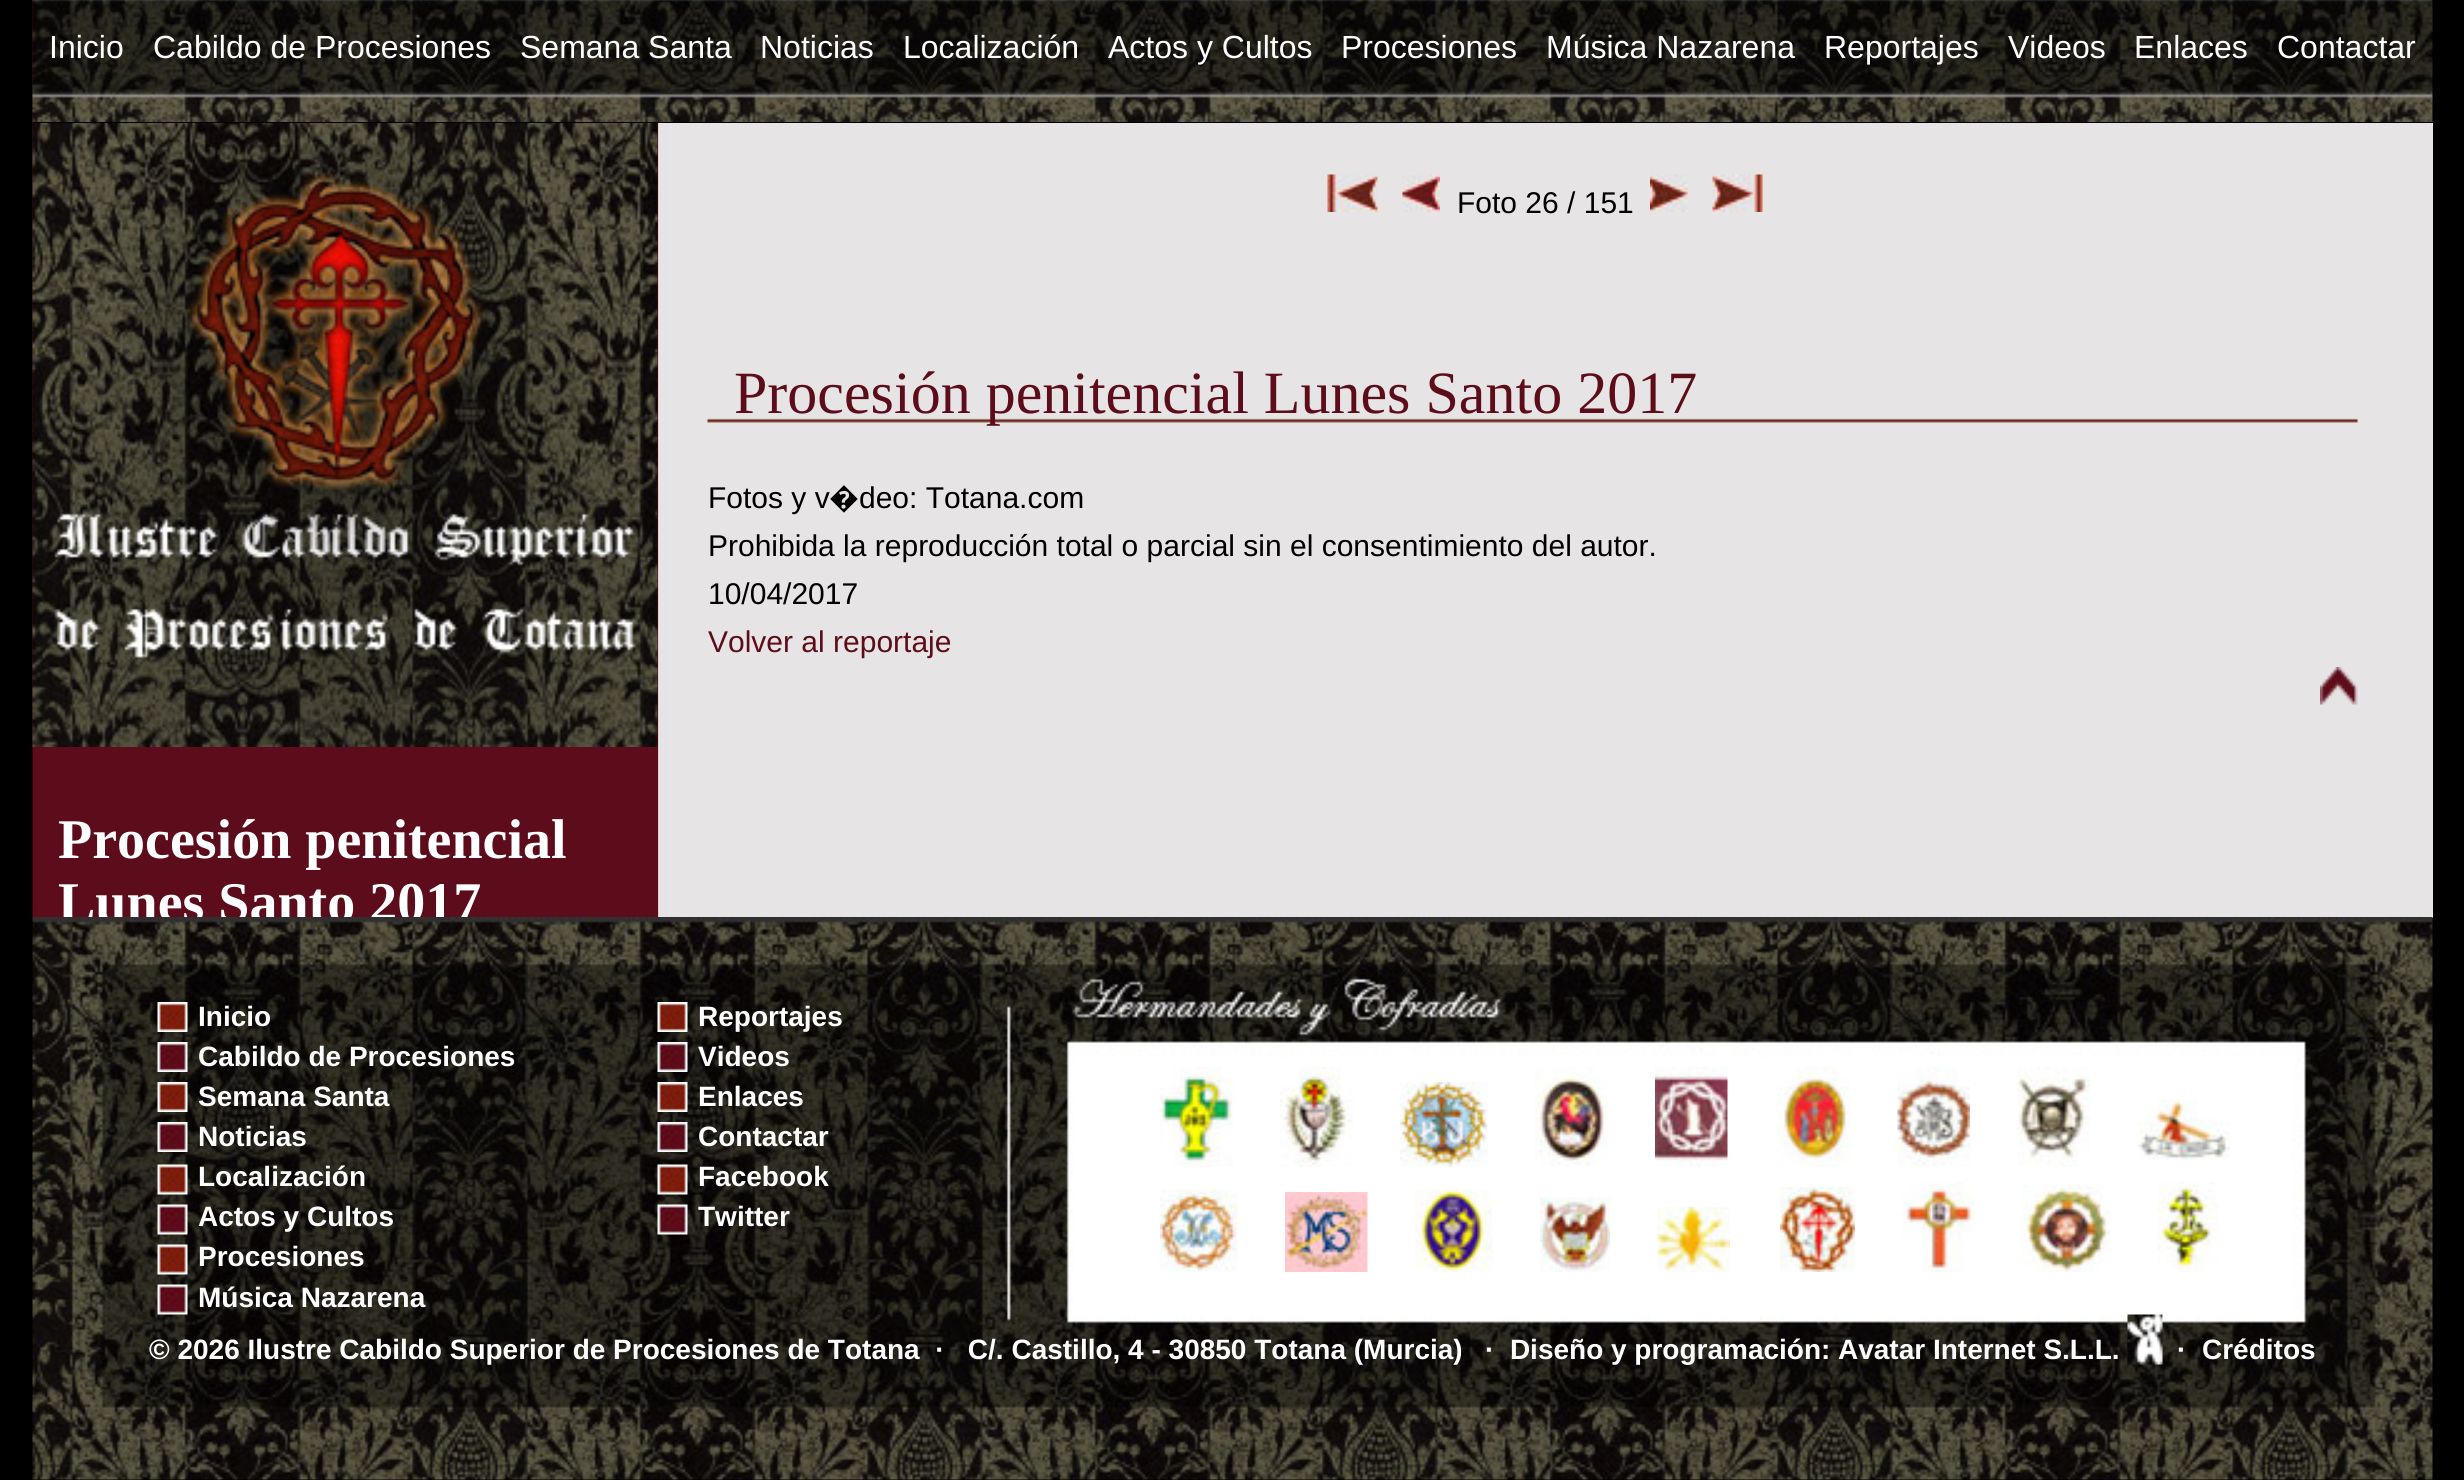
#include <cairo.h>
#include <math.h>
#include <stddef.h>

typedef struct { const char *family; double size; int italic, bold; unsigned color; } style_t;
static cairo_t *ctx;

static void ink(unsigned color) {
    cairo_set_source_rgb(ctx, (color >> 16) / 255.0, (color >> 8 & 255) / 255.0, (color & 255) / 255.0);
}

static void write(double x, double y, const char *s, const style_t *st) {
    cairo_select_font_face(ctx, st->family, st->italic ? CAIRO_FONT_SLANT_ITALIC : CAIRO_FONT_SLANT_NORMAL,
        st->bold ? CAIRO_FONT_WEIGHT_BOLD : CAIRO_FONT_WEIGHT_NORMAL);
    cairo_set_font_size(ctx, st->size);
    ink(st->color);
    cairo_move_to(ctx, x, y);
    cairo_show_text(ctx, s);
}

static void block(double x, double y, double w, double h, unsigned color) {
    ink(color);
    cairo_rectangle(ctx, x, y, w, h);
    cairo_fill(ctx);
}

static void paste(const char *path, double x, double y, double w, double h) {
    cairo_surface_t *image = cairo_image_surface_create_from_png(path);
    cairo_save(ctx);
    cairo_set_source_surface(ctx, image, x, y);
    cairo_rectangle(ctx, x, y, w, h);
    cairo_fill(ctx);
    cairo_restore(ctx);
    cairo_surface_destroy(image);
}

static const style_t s1 = {"Liberation Sans", 32, 0, 0, 0xffffff};
static const style_t s2 = {"Liberation Sans", 30, 0, 0, 0x000000};
static const style_t s3 = {"Liberation Serif", 60, 0, 0, 0x5d0d1a};
static const style_t s4 = {"Noto Sans", 30, 0, 0, 0x000000};
static const style_t s5 = {"Liberation Sans", 30, 0, 0, 0x5d0d1a};
static const style_t s6 = {"Liberation Serif", 56, 0, 1, 0xffffff};
static const style_t s7 = {"Liberation Sans", 28, 0, 1, 0xffffff};

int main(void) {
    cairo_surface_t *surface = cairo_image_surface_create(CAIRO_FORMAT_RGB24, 2464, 1480);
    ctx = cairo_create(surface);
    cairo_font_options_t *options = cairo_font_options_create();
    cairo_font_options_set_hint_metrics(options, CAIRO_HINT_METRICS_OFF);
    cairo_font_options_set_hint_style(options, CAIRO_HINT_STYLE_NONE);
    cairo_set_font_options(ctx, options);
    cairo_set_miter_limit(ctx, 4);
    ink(0x000000);
    cairo_paint(ctx);
    block(667, 123, 1766, 795, 0xe6e4e5);
    paste("pic1.png", 32, 0, 635, 917);
    block(652, 123, 6, 794, 0x5d0d1a);
    paste("pic9.png", 32, 122, 626, 625);
    block(33, 0, 634, 123, 0x000000);
    paste("pic2.png", 32, 0, 2401, 122);
    write(49, 58, "Inicio", &s1);
    write(153, 58, "Cabildo de Procesiones", &s1);
    write(520, 58, "Semana Santa", &s1);
    write(760, 58, "Noticias", &s1);
    write(903, 58, "Localización", &s1);
    write(1108, 58, "Actos y Cultos", &s1);
    write(1341, 58, "Procesiones", &s1);
    write(1546, 58, "Música Nazarena", &s1);
    write(1824, 58, "Reportajes", &s1);
    write(2008, 58, "Videos", &s1);
    write(2134, 58, "Enlaces", &s1);
    write(2277, 58, "Contactar", &s1);
    paste("pic3.png", 1327, 174, 51, 38);
    paste("pic4.png", 1402, 174, 38, 38);
    write(1457, 213, "Foto 26 / 151", &s2);
    paste("pic5.png", 1650, 174, 38, 38);
    paste("pic6.png", 1712, 174, 51, 38);
    paste("pic7.png", 707, 418, 1651, 5);
    write(734, 413, "Procesión penitencial Lunes Santo 2017", &s3);
    write(708, 508, "Fotos y v", &s2);
    write(829, 508, "�", &s4);
    write(859, 508, "deo: Totana.com", &s2);
    write(708, 556, "Prohibida la reproducción total o parcial sin el consentimiento del autor.", &s2);
    write(708, 604, "10/04/2017", &s2);
    write(708, 652, "Volver al reportaje", &s5);
    paste("pic8.png", 2320, 667, 38, 38);
    write(58, 858, "Procesión penitencial", &s6);
    write(58, 921, "Lunes Santo 2017", &s6);
    paste("pic10.png", 32, 917, 2401, 563);
    paste("pic11.png", 157, 1002, 31, 30);
    write(198, 1026, "Inicio", &s7);
    paste("pic12.png", 157, 1042, 31, 30);
    write(198, 1066, "Cabildo de Procesiones", &s7);
    paste("pic13.png", 157, 1082, 31, 30);
    write(198, 1106, "Semana Santa", &s7);
    paste("pic14.png", 157, 1122, 31, 30);
    write(198, 1146, "Noticias", &s7);
    paste("pic15.png", 157, 1164, 31, 31);
    write(198, 1186, "Localización", &s7);
    paste("pic16.png", 157, 1204, 31, 31);
    write(198, 1226, "Actos y Cultos", &s7);
    paste("pic17.png", 157, 1244, 31, 31);
    write(198, 1266, "Procesiones", &s7);
    paste("pic18.png", 157, 1284, 31, 31);
    write(198, 1307, "Música Nazarena", &s7);
    paste("pic19.png", 657, 1002, 31, 30);
    write(698, 1026, "Reportajes", &s7);
    paste("pic20.png", 657, 1042, 31, 30);
    write(698, 1066, "Videos", &s7);
    paste("pic21.png", 657, 1082, 31, 30);
    write(698, 1106, "Enlaces", &s7);
    paste("pic22.png", 657, 1122, 31, 30);
    write(698, 1146, "Contactar", &s7);
    paste("pic23.png", 657, 1164, 31, 31);
    write(698, 1186, "Facebook", &s7);
    paste("pic24.png", 657, 1204, 31, 31);
    write(698, 1226, "Twitter", &s7);
    paste("pic25.png", 1160, 1067, 73, 100);
    paste("pic26.png", 1280, 1067, 73, 100);
    paste("pic27.png", 1400, 1082, 88, 85);
    paste("pic28.png", 1535, 1067, 73, 100);
    paste("pic29.png", 1655, 1067, 73, 100);
    paste("pic30.png", 1777, 1067, 73, 100);
    paste("pic31.png", 1897, 1067, 73, 100);
    paste("pic32.png", 2017, 1067, 73, 100);
    paste("pic33.png", 2137, 1099, 93, 61);
    paste("pic34.png", 1160, 1189, 78, 83);
    paste("pic35.png", 1285, 1192, 83, 80);
    paste("pic36.png", 1415, 1189, 78, 83);
    paste("pic37.png", 1540, 1197, 70, 75);
    paste("pic38.png", 1657, 1207, 73, 65);
    paste("pic39.png", 1780, 1187, 75, 85);
    paste("pic40.png", 1902, 1182, 73, 90);
    paste("pic41.png", 2022, 1184, 88, 88);
    paste("pic42.png", 2157, 1182, 61, 90);
    write(149, 1359, "© 2026 Ilustre Cabildo Superior de Procesiones de Totana  ·   C/. Castillo, 4 - 30850 Totana (Murcia)", &s7);
    write(1485, 1359, "·  Diseño y programación:", &s7);
    write(1838, 1359, "Avatar Internet S.L.L.", &s7);
    paste("pic43.png", 2127, 1314, 36, 51);
    write(2177, 1359, "·", &s7);
    write(2202, 1359, "Créditos", &s7);
    cairo_surface_write_to_png(surface, "screenshot.png");
    cairo_font_options_destroy(options);
    cairo_destroy(ctx);
    cairo_surface_destroy(surface);
    return 0;
}
